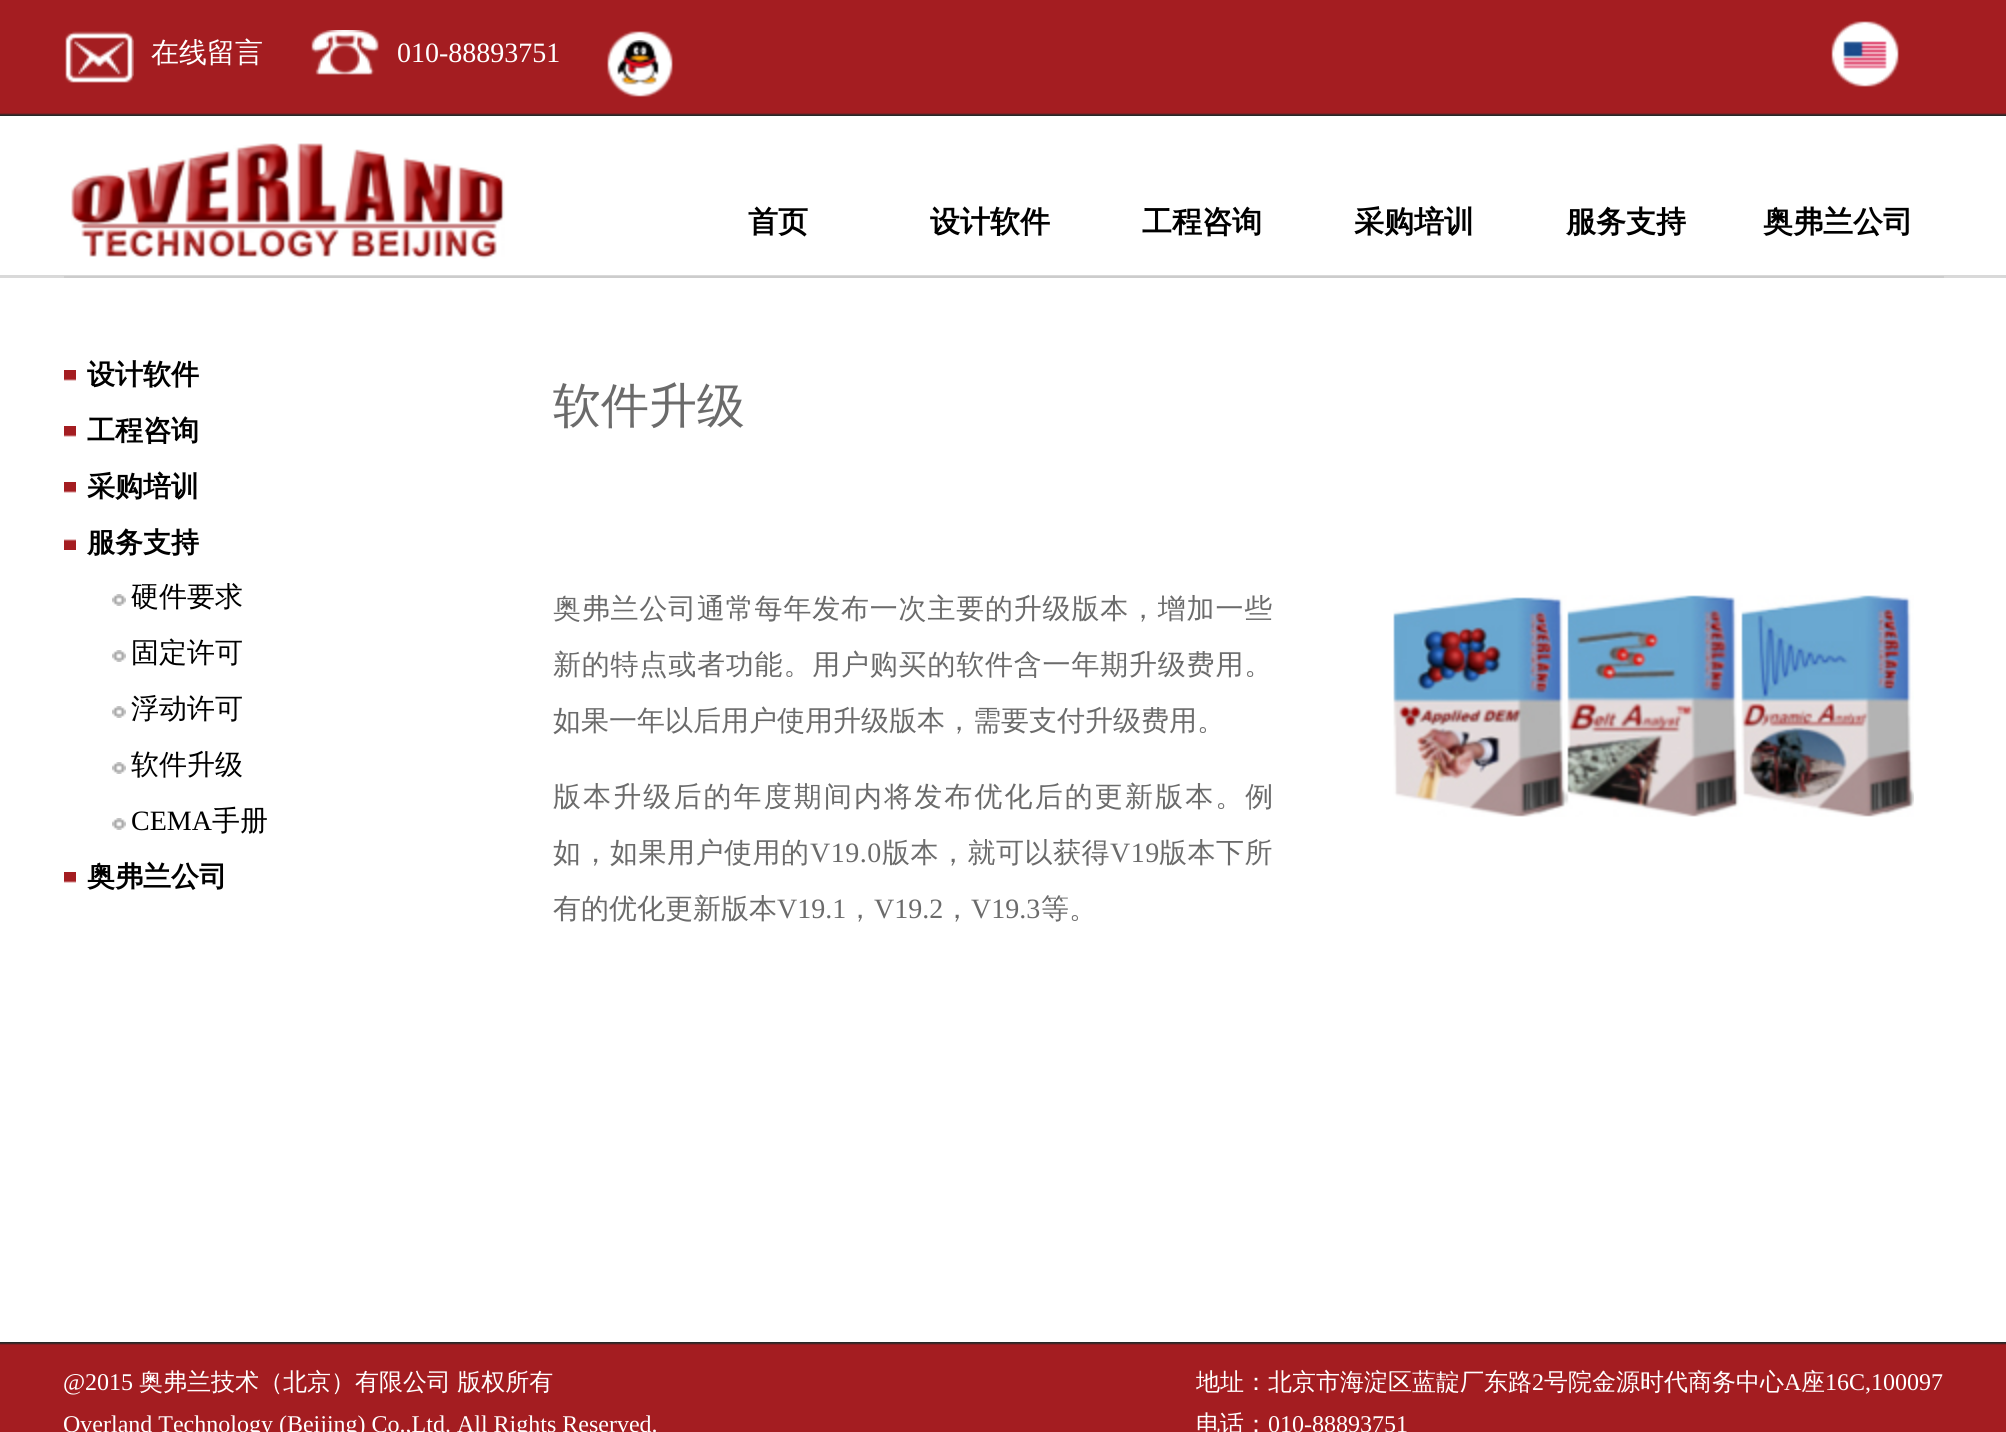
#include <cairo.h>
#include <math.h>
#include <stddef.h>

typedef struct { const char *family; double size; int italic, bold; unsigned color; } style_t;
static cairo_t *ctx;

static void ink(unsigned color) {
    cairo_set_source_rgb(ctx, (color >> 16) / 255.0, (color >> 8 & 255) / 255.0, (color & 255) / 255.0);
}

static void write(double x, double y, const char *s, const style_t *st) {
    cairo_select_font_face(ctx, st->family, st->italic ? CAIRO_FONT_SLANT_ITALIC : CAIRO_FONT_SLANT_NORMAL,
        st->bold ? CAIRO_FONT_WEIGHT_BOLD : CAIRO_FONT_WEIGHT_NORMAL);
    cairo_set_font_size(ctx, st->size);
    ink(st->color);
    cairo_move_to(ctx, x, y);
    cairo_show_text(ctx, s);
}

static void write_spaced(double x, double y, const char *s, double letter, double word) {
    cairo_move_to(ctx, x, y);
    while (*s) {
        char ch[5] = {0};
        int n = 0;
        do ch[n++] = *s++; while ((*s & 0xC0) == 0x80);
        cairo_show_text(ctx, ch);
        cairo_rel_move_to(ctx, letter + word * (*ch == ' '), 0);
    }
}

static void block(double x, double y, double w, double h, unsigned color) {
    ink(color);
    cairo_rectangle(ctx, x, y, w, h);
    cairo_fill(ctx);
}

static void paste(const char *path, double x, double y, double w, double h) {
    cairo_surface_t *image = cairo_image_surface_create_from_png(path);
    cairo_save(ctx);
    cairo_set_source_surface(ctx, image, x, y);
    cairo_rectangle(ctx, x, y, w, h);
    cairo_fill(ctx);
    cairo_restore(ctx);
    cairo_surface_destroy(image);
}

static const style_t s1 = {"WenQuanYi Zen Hei Medium", 28, 0, 0, 0xffffff};
static const style_t s2 = {"Liberation Serif", 28, 0, 0, 0xffffff};
static const style_t s3 = {"WenQuanYi Zen Hei", 30, 0, 1, 0x000000};
static const style_t s4 = {"WenQuanYi Zen Hei", 28, 0, 1, 0x000000};
static const style_t s5 = {"WenQuanYi Zen Hei Medium", 28, 0, 0, 0x000000};
static const style_t s6 = {"Liberation Serif", 28, 0, 0, 0x000000};
static const style_t s7 = {"WenQuanYi Zen Hei Medium", 48, 0, 0, 0x6b6b6b};
static const style_t s8 = {"WenQuanYi Zen Hei Medium", 28, 0, 0, 0x6b6b6b};
static const style_t s9 = {"Liberation Serif", 28, 0, 0, 0x6b6b6b};
static const style_t s10 = {"Liberation Serif", 24, 0, 0, 0xffffff};
static const style_t s11 = {"WenQuanYi Zen Hei Medium", 24, 0, 0, 0xffffff};

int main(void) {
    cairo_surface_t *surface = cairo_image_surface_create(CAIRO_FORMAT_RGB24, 2006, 1432);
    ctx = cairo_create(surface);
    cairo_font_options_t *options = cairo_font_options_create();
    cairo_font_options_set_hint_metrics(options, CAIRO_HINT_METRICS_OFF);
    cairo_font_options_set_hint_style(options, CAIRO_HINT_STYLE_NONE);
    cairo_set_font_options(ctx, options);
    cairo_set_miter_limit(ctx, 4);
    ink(0xffffff);
    cairo_paint(ctx);
    paste("pic1.png", 0, 0, 2006, 116);
    paste("pic2.png", 65, 31, 69, 52);
    write(151, 62, "在线留言", &s1);
    paste("pic3.png", 311, 30, 68, 45);
    write(397, 62, "010-88893751", &s2);
    paste("pic4.png", 607, 31, 66, 66);
    paste("pic5.png", 617, 40, 42, 45);
    paste("pic6.png", 1831, 21, 68, 66);
    paste("pic7.png", 1843, 41, 44, 28);
    block(0, 275, 2006, 3, 0xd9d9d9);
    block(64, 276, 1880, 2, 0xcccccc);
    paste("pic8.png", 71, 143, 434, 116);
    write(748, 232, "首页", &s3);
    write(930, 232, "设计软件", &s3);
    write(1142, 232, "工程咨询", &s3);
    write(1354, 232, "采购培训", &s3);
    write(1566, 232, "服务支持", &s3);
    write(1763, 232, "奥弗兰公司", &s3);
    paste("pic9.png", 64, 370, 12, 11);
    write(87, 384, "设计软件", &s4);
    paste("pic9.png", 64, 426, 12, 11);
    write(87, 440, "工程咨询", &s4);
    paste("pic9.png", 64, 482, 12, 11);
    write(87, 496, "采购培训", &s4);
    paste("pic10.png", 64, 539, 12, 11);
    write(87, 552, "服务支持", &s4);
    paste("pic11.png", 112, 594, 14, 12);
    write(131, 606, "硬件要求", &s5);
    paste("pic11.png", 112, 650, 14, 12);
    write(131, 662, "固定许可", &s5);
    paste("pic11.png", 112, 706, 14, 12);
    write(131, 718, "浮动许可", &s5);
    paste("pic11.png", 112, 762, 14, 12);
    write(131, 774, "软件升级", &s5);
    paste("pic11.png", 112, 818, 14, 12);
    write(131, 830, "CEMA", &s6);
    write(212, 830, "手册", &s5);
    paste("pic9.png", 64, 872, 12, 11);
    write(87, 886, "奥弗兰公司", &s4);
    write(553, 422, "软件升级", &s7);
    cairo_set_font_size(ctx, 28);
    write_spaced(553, 618, "奥弗兰公司通常每年发布一次主要的升级版本，增加一些", 0.8, 0);
    write_spaced(553, 674, "新的特点或者功能。用户购买的软件含一年期升级费用。", 0.8, 0);
    write(553, 730, "如果一年以后用户使用升级版本，需要支付升级费用。", &s8);
    write_spaced(553, 806, "版本升级后的年度期间内将发布优化后的更新版本。例", 2.1, 0);
    write_spaced(553, 862, "如，如果用户使用的", 0.5, 0);
    cairo_select_font_face(ctx, "Liberation Serif", CAIRO_FONT_SLANT_NORMAL, CAIRO_FONT_WEIGHT_NORMAL);
    write_spaced(810, 862, "V19.0", 0.5, 0);
    cairo_select_font_face(ctx, "WenQuanYi Zen Hei Medium", CAIRO_FONT_SLANT_NORMAL, CAIRO_FONT_WEIGHT_NORMAL);
    write_spaced(882, 862, "版本，就可以获得", 0.5, 0);
    cairo_select_font_face(ctx, "Liberation Serif", CAIRO_FONT_SLANT_NORMAL, CAIRO_FONT_WEIGHT_NORMAL);
    write_spaced(1110, 862, "V19", 0.5, 0);
    cairo_select_font_face(ctx, "WenQuanYi Zen Hei Medium", CAIRO_FONT_SLANT_NORMAL, CAIRO_FONT_WEIGHT_NORMAL);
    write_spaced(1159, 862, "版本下所", 0.5, 0);
    write(553, 918, "有的优化更新版本", &s8);
    write(777, 918, "V19.1", &s9);
    write(846, 918, "，", &s8);
    write(874, 918, "V19.2", &s9);
    write(943, 918, "，", &s8);
    write(971, 918, "V19.3", &s9);
    write(1041, 918, "等。", &s8);
    paste("pic12.png", 1393, 595, 521, 222);
    paste("pic13.png", 0, 1342, 2006, 90);
    write(63, 1390, "@2015", &s10);
    cairo_select_font_face(ctx, "WenQuanYi Zen Hei Medium", CAIRO_FONT_SLANT_NORMAL, CAIRO_FONT_WEIGHT_NORMAL);
    write_spaced(139, 1390, "奥弗兰技术（北京）有限公司 版权所有", 0, -1);
    write(63, 1432, "Overland Technology (Beijing) Co.,Ltd. All Rights Reserved.", &s10);
    write(1196, 1390, "地址：北京市海淀区蓝靛厂东路", &s11);
    write(1532, 1390, "2", &s10);
    write(1544, 1390, "号院金源时代商务中心", &s11);
    write(1784, 1390, "A", &s10);
    write(1801, 1390, "座", &s11);
    write(1825, 1390, "16C,100097", &s10);
    write(1196, 1432, "电话：", &s11);
    write(1268, 1432, "010-88893751", &s10);
    cairo_surface_write_to_png(surface, "screenshot.png");
    cairo_font_options_destroy(options);
    cairo_destroy(ctx);
    cairo_surface_destroy(surface);
    return 0;
}
